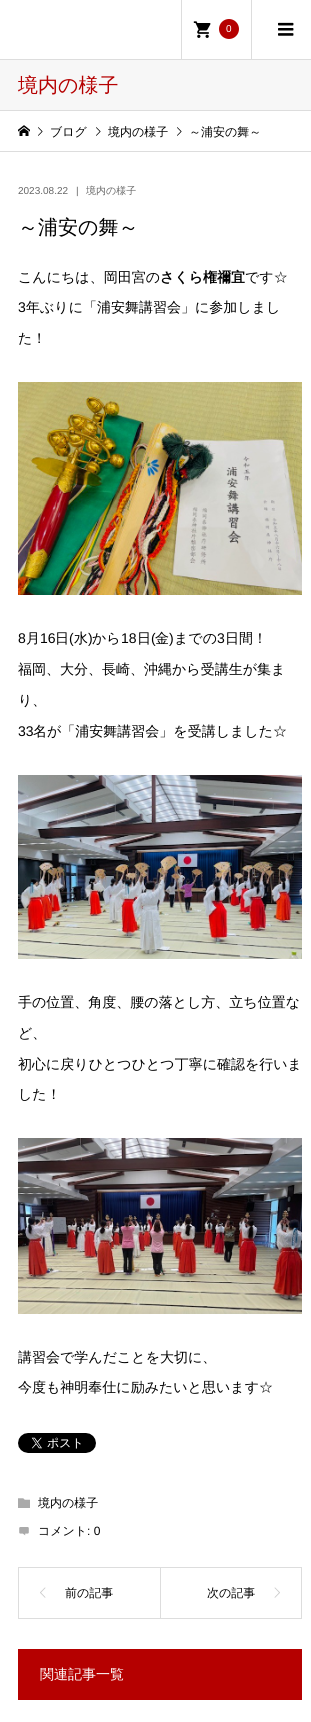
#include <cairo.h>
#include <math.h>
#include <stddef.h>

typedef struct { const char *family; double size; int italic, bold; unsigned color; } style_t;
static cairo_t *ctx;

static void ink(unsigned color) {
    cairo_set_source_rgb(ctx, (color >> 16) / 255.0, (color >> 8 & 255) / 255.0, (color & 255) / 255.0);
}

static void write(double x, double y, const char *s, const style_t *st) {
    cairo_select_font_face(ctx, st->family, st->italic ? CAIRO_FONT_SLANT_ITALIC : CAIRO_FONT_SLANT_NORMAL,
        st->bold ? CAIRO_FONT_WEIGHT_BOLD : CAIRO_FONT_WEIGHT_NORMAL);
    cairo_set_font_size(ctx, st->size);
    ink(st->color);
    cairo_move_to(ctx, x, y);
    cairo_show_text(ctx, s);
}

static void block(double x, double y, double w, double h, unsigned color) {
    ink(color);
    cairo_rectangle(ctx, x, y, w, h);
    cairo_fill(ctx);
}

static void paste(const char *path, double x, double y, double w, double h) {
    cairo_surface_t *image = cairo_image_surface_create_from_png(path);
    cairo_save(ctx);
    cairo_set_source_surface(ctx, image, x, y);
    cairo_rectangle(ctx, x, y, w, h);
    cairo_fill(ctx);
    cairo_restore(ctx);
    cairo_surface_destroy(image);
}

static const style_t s1 = {"Liberation Sans", 10, 0, 0, 0xffffff};
static const style_t s2 = {"WenQuanYi Zen Hei Medium", 20, 0, 0, 0xb50000};
static const style_t s3 = {"WenQuanYi Zen Hei Medium", 12, 0, 0, 0x000000};
static const style_t s4 = {"Liberation Sans", 10, 0, 0, 0x666666};
static const style_t s5 = {"WenQuanYi Zen Hei Medium", 10, 0, 0, 0x666666};
static const style_t s6 = {"WenQuanYi Zen Hei Medium", 20, 0, 0, 0x000000};
static const style_t s7 = {"WenQuanYi Zen Hei Medium", 14, 0, 0, 0x000000};
static const style_t s8 = {"WenQuanYi Zen Hei", 14, 0, 1, 0x000000};
static const style_t s9 = {"Liberation Sans", 14, 0, 0, 0x000000};
static const style_t s10 = {"Liberation Sans", 12, 0, 0, 0x000000};
static const style_t s11 = {"WenQuanYi Zen Hei Medium", 14, 0, 0, 0xffffff};

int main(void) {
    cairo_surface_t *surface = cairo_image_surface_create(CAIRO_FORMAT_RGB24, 311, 1722);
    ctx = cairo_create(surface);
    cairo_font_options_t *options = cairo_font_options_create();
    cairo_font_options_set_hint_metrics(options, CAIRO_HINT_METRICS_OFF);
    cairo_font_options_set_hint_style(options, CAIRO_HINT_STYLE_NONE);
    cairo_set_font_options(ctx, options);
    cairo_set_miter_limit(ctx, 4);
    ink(0xffffff);
    cairo_paint(ctx);
    block(0, 59, 311, 1, 0xdddddd);
    block(181, 0, 1, 59, 0xdddddd);
    paste("pic1.png", 193, 21, 18, 17);
    ink(0xb50000);
    cairo_arc(ctx, 229, 29, 10, 0, 2 * M_PI);
    cairo_fill(ctx);
    write(226, 32, "0", &s1);
    block(251, 0, 1, 59, 0xdddddd);
    paste("pic2.png", 278, 22, 16, 14);
    block(0, 60, 311, 50, 0xf7f7f7);
    block(0, 110, 311, 1, 0xdddddd);
    write(18, 92, "境内の様子", &s2);
    block(0, 151, 311, 1, 0xdddddd);
    paste("pic3.png", 18, 125, 12, 11);
    paste("pic4.png", 38, 127, 5, 9);
    write(50, 136, "ブログ", &s3);
    paste("pic4.png", 96, 127, 5, 9);
    write(108, 136, "境内の様子", &s3);
    paste("pic4.png", 177, 127, 5, 9);
    write(189, 136, "～浦安の舞～", &s3);
    write(18, 194, "2023.08.22", &s4);
    write(76, 194, "|", &s4);
    write(86, 194, "境内の様子", &s5);
    write(18, 234, "～浦安の舞～", &s6);
    write(18, 282, "こんにちは、岡田宮の", &s7);
    write(160, 282, "さくら権禰宜", &s8);
    write(245, 282, "です☆", &s7);
    write(18, 312, "3", &s9);
    write(26, 312, "年ぶりに「浦安舞講習会」に参加しまし", &s7);
    write(18, 343, "た！", &s7);
    paste("pic5.png", 18, 382, 284, 213);
    write(18, 643, "8", &s9);
    write(26, 643, "月", &s7);
    write(40, 643, "16", &s9);
    write(55, 643, "日", &s7);
    write(69, 643, "(", &s9);
    write(74, 643, "水", &s7);
    write(88, 643, ")", &s9);
    write(92, 643, "から", &s7);
    write(121, 643, "18", &s9);
    write(137, 643, "日", &s7);
    write(151, 643, "(", &s9);
    write(155, 643, "金", &s7);
    write(169, 643, ")", &s9);
    write(174, 643, "までの", &s7);
    write(217, 643, "3", &s9);
    write(225, 643, "日間！", &s7);
    write(18, 674, "福岡、大分、長崎、沖縄から受講生が集ま", &s7);
    write(18, 705, "り、", &s7);
    write(18, 736, "33", &s9);
    write(33, 736, "名が「浦安舞講習会」を受講しました☆", &s7);
    paste("pic6.png", 18, 775, 284, 184);
    write(18, 1007, "手の位置、角度、腰の落とし方、立ち位置な", &s7);
    write(18, 1038, "ど、", &s7);
    write(18, 1069, "初心に戻りひとつひとつ丁寧に確認を行いま", &s7);
    write(18, 1099, "した！", &s7);
    paste("pic7.png", 18, 1138, 284, 176);
    write(18, 1362, "講習会で学んだことを大切に、", &s7);
    write(18, 1392, "今度も神明奉仕に励みたいと思います☆", &s7);
    paste("pic8.png", 18, 1433, 78, 20);
    paste("pic9.png", 18, 1498, 12, 10);
    write(38, 1507, "境内の様子", &s3);
    paste("pic10.png", 19, 1527, 10, 9);
    write(38, 1535, "コメント", &s3);
    write(87, 1535, ": 0", &s10);
    cairo_rectangle(ctx, 18.5, 1567.5, 142, 51);
    ink(0xdddddd);
    cairo_set_line_width(ctx, 1);
    cairo_stroke(ctx);
    paste("pic11.png", 40, 1587, 6, 11);
    write(65, 1597, "前の記事", &s3);
    block(161, 1567, 141, 1, 0xdddddd);
    block(301, 1567, 1, 52, 0xdddddd);
    block(161, 1618, 141, 1, 0xdddddd);
    write(207, 1597, "次の記事", &s3);
    paste("pic12.png", 274, 1587, 6, 11);
    block(18, 1649, 284, 51, 0xb50000);
    write(40, 1679, "関連記事一覧", &s11);
    cairo_surface_write_to_png(surface, "screenshot.png");
    cairo_font_options_destroy(options);
    cairo_destroy(ctx);
    cairo_surface_destroy(surface);
    return 0;
}
